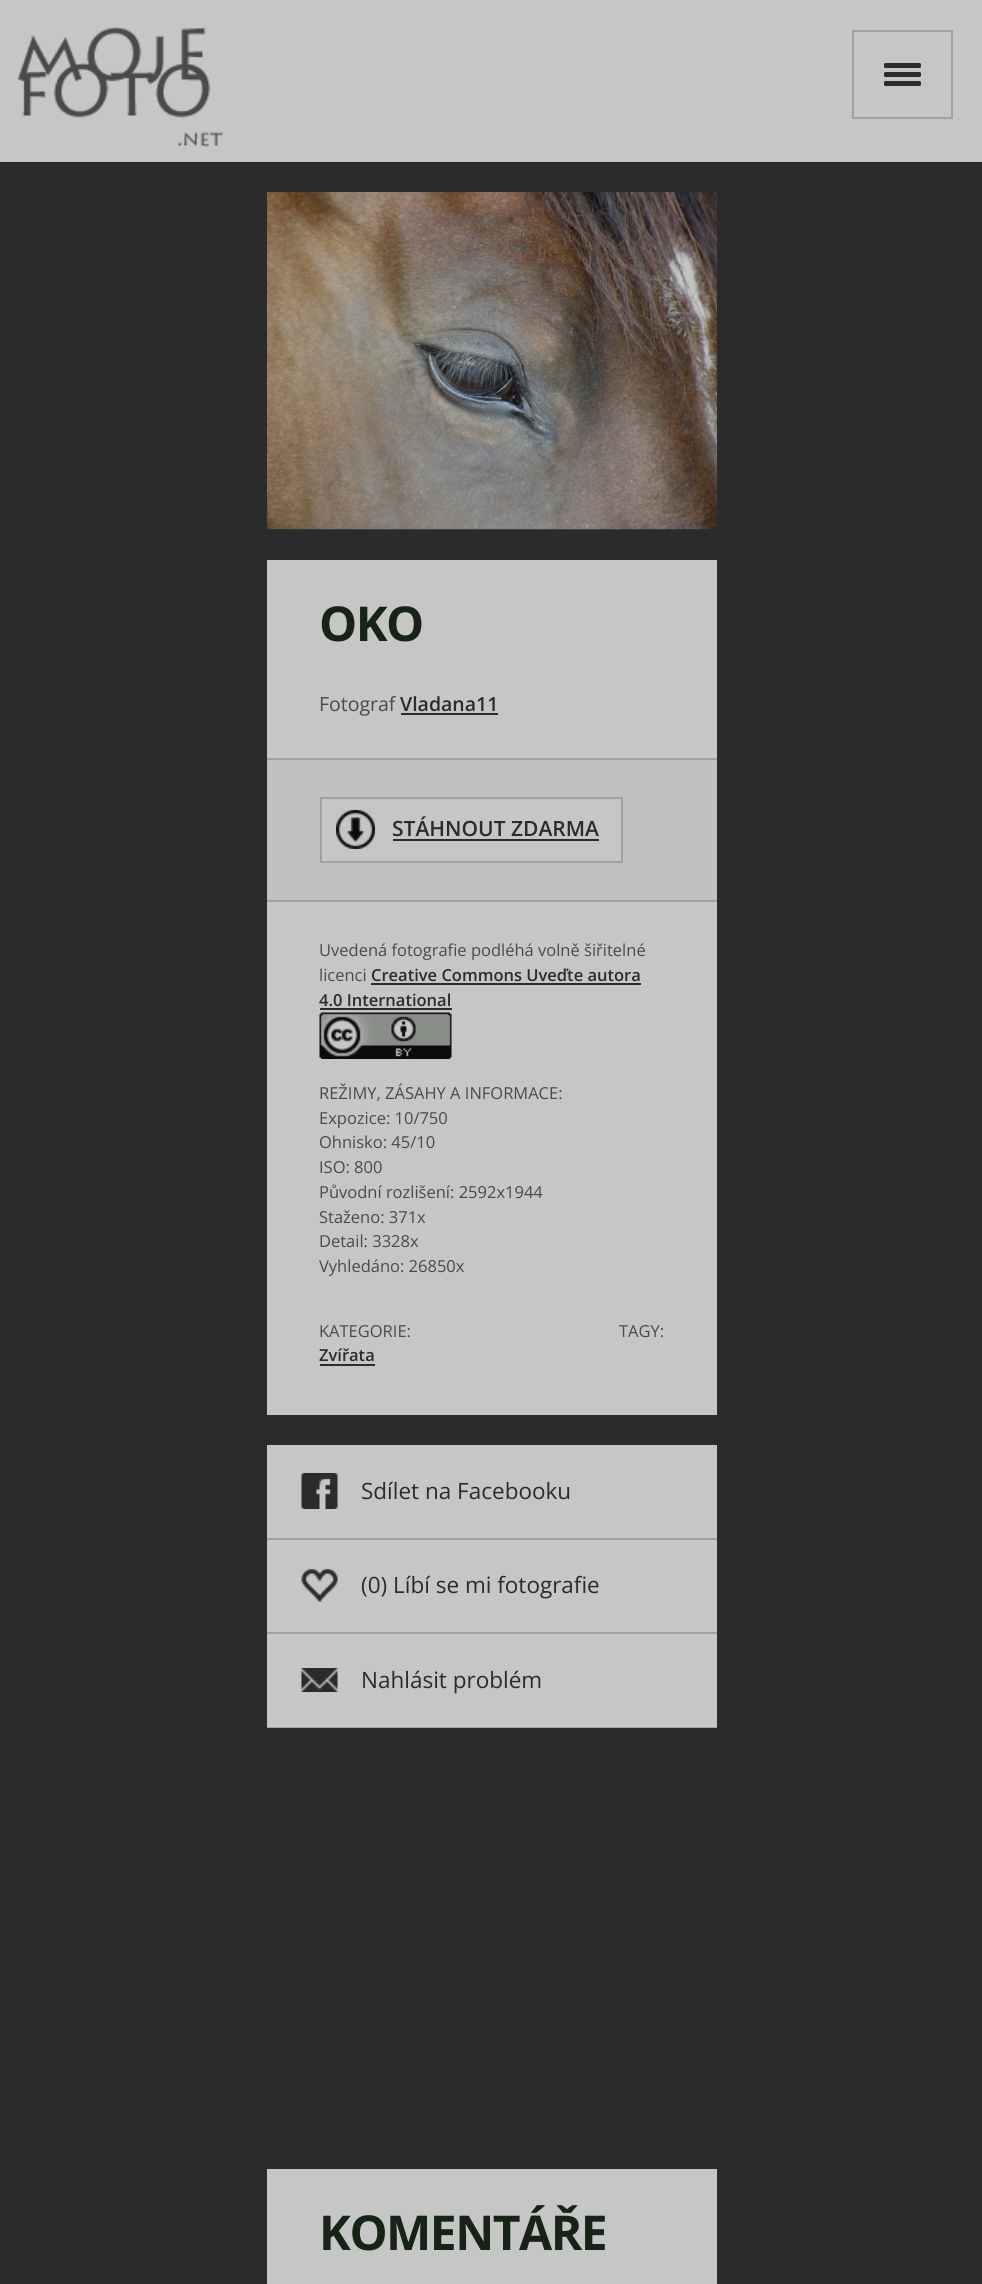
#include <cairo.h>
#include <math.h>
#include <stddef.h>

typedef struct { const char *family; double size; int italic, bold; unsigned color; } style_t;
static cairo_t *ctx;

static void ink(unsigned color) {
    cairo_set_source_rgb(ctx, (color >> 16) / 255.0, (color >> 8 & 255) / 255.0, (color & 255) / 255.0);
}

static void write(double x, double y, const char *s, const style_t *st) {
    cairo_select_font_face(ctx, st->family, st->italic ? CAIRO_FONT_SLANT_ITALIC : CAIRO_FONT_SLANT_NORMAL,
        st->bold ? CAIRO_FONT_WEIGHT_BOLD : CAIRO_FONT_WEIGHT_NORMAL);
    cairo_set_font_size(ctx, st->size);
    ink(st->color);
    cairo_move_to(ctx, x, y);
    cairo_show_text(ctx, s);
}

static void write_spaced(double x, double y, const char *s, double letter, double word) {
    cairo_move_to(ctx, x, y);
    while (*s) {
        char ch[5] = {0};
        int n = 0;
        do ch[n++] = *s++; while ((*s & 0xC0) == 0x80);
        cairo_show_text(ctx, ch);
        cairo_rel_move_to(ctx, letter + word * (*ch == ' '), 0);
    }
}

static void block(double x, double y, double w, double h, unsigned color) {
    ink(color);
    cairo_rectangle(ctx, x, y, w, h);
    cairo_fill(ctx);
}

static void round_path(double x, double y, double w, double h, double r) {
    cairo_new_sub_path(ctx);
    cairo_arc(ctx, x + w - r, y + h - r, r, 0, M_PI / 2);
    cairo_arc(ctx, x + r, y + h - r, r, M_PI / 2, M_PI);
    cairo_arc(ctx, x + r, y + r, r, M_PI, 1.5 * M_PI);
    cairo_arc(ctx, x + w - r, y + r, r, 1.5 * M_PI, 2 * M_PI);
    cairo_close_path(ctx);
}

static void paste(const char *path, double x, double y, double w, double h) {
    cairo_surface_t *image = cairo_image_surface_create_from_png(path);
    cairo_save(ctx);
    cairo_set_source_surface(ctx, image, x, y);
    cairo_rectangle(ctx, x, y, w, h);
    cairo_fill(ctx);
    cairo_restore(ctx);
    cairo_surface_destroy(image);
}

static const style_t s1 = {"Open Sans", 19.5, 0, 0, 0x4a4a4a};
static const style_t s2 = {"Open Sans SemiBold", 19.5, 0, 0, 0x2b2b2b};
static const style_t s3 = {"Open Sans SemiBold", 21, 0, 0, 0x2b2b2b};
static const style_t s4 = {"Open Sans", 16.5, 0, 0, 0x4a4a4a};
static const style_t s5 = {"Open Sans SemiBold", 16.5, 0, 0, 0x2b2b2b};
static const style_t s6 = {"Open Sans", 22.5, 0, 0, 0x2b2b2b};

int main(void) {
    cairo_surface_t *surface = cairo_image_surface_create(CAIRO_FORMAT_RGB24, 982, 2284);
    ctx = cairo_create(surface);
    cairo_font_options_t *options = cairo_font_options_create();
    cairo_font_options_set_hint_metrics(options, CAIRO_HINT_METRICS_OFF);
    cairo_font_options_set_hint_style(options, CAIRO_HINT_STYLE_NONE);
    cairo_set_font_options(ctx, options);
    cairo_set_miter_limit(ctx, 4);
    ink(0x2b2b2b);
    cairo_paint(ctx);
    ink(0x282828);
    cairo_new_path(ctx);
    cairo_move_to(ctx, 0, 162);
    cairo_line_to(ctx, 0, 164);
    cairo_line_to(ctx, 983, 164);
    cairo_line_to(ctx, 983, 2);
    cairo_line_to(ctx, 982, 2);
    cairo_line_to(ctx, 982, 162);
    cairo_close_path(ctx);
    cairo_fill(ctx);
    block(0, 0, 982, 162, 0xc6c6c6);
    paste("pic1.png", 17, 26, 207, 121);
    cairo_rectangle(ctx, 853, 31, 99, 87);
    ink(0xa1a1a1);
    cairo_stroke(ctx);
    ink(0x2b2b2b);
    round_path(884, 63, 37, 5, 1.5);
    cairo_fill(ctx);
    round_path(884, 72, 37, 5, 1.5);
    cairo_fill(ctx);
    round_path(884, 81, 37, 5, 1.5);
    cairo_fill(ctx);
    paste("pic2.png", 267, 192, 450, 338);
    block(267, 560, 450, 855, 0xc6c6c6);
    cairo_select_font_face(ctx, "Open Sans", CAIRO_FONT_SLANT_NORMAL, CAIRO_FONT_WEIGHT_BOLD);
    cairo_set_font_size(ctx, 48);
    ink(0x172317);
    write_spaced(319, 641, "OKO", -1.5, 0);
    write(319, 711, "Fotograf", &s1);
    write(400, 711, "Vladana11", &s2);
    block(401, 713, 97, 2, 0x2b2b2b);
    block(267, 760, 450, 140, 0xc1c1c1);
    block(267, 758, 450, 2, 0xa1a1a1);
    block(267, 900, 450, 2, 0xa1a1a1);
    block(322, 799, 299, 62, 0xc6c6c6);
    paste("pic3.png", 336, 810, 39, 39);
    cairo_rectangle(ctx, 321, 798, 301, 64);
    ink(0xa1a1a1);
    cairo_stroke(ctx);
    write(392, 836, "STÁHNOUT ZDARMA", &s3);
    block(393, 839, 206, 2, 0x2b2b2b);
    write(319, 956, "Uvedená fotografie podléhá volně šiřitelné", &s4);
    write(319, 981, "licenci", &s4);
    write(371, 981, "Creative Commons Uveďte autora", &s5);
    block(371, 983, 270, 2, 0x2b2b2b);
    write(319, 1006, "4.0 International", &s5);
    block(320, 1008, 132, 2, 0x2b2b2b);
    paste("pic4.png", 319, 1012, 133, 47);
    write(319, 1099, "REŽIMY, ZÁSAHY A INFORMACE:", &s4);
    write(319, 1124, "Expozice: 10/750", &s4);
    write(319, 1148, "Ohnisko: 45/10", &s4);
    write(319, 1173, "ISO: 800", &s4);
    write(319, 1198, "Původní rozlišení: 2592x1944", &s4);
    write(319, 1223, "Staženo: 371x", &s4);
    write(319, 1247, "Detail: 3328x", &s4);
    write(319, 1272, "Vyhledáno: 26850x", &s4);
    write(319, 1337, "KATEGORIE:", &s4);
    write(319, 1361, "Zvířata", &s5);
    block(320, 1364, 55, 2, 0x2b2b2b);
    write(619, 1337, "TAGY:", &s4);
    block(267, 1445, 450, 282, 0xc6c6c6);
    block(267, 1538, 450, 2, 0xa1a1a1);
    paste("pic5.png", 301, 1473, 37, 36);
    write(361, 1499, "Sdílet na Facebooku", &s6);
    block(267, 1632, 450, 2, 0xa1a1a1);
    paste("pic6.png", 301, 1569, 37, 33);
    write(361, 1593, "(0) Líbí se mi fotografie", &s6);
    block(267, 1727, 450, 1, 0xa1a1a1);
    paste("pic7.png", 301, 1668, 37, 24);
    write(361, 1688, "Nahlásit problém", &s6);
    block(267, 2169, 450, 115, 0xc6c6c6);
    cairo_select_font_face(ctx, "Open Sans", CAIRO_FONT_SLANT_NORMAL, CAIRO_FONT_WEIGHT_BOLD);
    cairo_set_font_size(ctx, 48);
    ink(0x172317);
    write_spaced(319, 2250, "KOMENTÁŘE", -1.5, 0);
    cairo_surface_write_to_png(surface, "screenshot.png");
    cairo_font_options_destroy(options);
    cairo_destroy(ctx);
    cairo_surface_destroy(surface);
    return 0;
}
